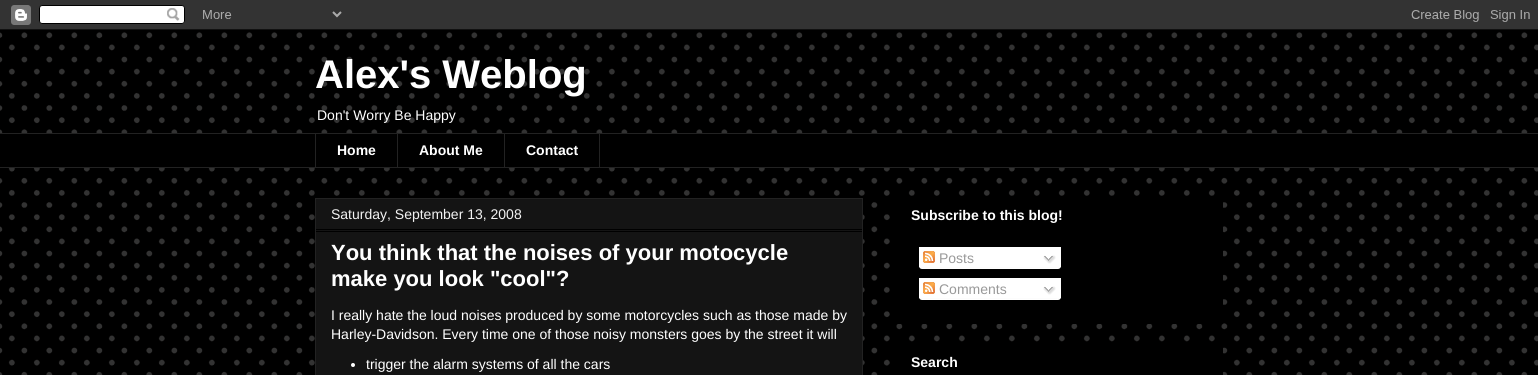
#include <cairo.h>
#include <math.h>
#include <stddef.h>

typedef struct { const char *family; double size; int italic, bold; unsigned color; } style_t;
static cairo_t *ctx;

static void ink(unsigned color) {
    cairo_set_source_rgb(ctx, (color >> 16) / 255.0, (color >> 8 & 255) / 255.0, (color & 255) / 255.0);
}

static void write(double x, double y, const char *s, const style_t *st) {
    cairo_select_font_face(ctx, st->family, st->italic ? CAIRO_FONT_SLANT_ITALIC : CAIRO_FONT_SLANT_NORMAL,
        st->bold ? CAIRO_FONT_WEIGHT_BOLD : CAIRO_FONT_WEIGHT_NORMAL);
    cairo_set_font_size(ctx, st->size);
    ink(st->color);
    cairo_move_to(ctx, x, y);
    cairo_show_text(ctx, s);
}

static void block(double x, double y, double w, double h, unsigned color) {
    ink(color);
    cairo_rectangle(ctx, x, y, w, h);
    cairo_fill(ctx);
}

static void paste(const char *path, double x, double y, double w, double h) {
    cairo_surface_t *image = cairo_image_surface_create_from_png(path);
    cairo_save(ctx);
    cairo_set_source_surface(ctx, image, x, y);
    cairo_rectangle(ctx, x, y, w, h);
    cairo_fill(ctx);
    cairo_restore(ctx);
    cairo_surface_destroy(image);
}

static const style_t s1 = {"Liberation Sans", 40, 0, 1, 0xffffff};
static const style_t s2 = {"Liberation Sans", 14, 0, 0, 0xffffff};
static const style_t s3 = {"Liberation Sans", 14, 0, 1, 0xffffff};
static const style_t s4 = {"Liberation Sans", 14, 0, 0, 0xf3f3f3};
static const style_t s5 = {"Liberation Sans", 22, 0, 1, 0xffffff};
static const style_t s6 = {"Liberation Sans", 14, 0, 0, 0x999999};

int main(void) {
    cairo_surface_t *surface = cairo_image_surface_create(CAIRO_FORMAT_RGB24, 1538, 375);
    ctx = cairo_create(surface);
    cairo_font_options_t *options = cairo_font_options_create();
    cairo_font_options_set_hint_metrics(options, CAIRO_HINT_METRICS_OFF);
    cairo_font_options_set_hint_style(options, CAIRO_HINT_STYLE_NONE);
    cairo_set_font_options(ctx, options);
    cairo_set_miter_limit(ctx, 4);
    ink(0x000000);
    cairo_paint(ctx);
    paste("pic1.png", 0, 30, 1538, 345);
    paste("pic2.png", 0, 0, 1538, 30);
    write(315, 88, "Alex's Weblog", &s1);
    write(317, 120, "Don't Worry Be Happy", &s2);
    block(0, 134, 1538, 33, 0x000000);
    block(0, 133, 1538, 1, 0x222222);
    block(315, 133, 1, 35, 0x222222);
    write(337, 155, "Home", &s3);
    block(397, 133, 1, 35, 0x222222);
    write(419, 155, "About Me", &s3);
    cairo_rectangle(ctx, 504.5, 133.5, 95, 34);
    ink(0x222222);
    cairo_set_line_width(ctx, 1);
    cairo_stroke(ctx);
    write(526, 155, "Contact", &s3);
    block(0, 167, 1538, 1, 0x222222);
    ink(0x141414);
    cairo_rectangle(ctx, 315.5, 198.5, 547, 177);
    cairo_fill_preserve(ctx);
    ink(0x222222);
    cairo_stroke(ctx);
    block(316, 229, 546, 1, 0x000000);
    write(331, 219, "Saturday, September 13, 2008", &s4);
    block(316, 231, 546, 1, 0x000000);
    write(331, 260, "You think that the noises of your motocycle", &s5);
    write(331, 286, "make you look \"cool\"?", &s5);
    write(331, 320, "I really hate the loud noises produced by some motorcycles such as those made by", &s2);
    write(331, 339, "Harley-Davidson. Every time one of those noisy monsters goes by the street it will", &s2);
    cairo_new_path(ctx);
    cairo_arc(ctx, 353, 365, 2, 0, 2 * M_PI);
    cairo_fill(ctx);
    write(366, 369, "trigger the alarm systems of all the cars", &s2);
    block(896, 202, 327, 122, 0x000000);
    write(911, 220, "Subscribe to this blog!", &s3);
    block(919, 247, 142, 20, 0xffffff);
    paste("pic3.png", 923, 251, 12, 12);
    write(939, 263, "Posts", &s6);
    paste("pic4.png", 1043, 255, 13, 9);
    paste("pic5.png", 919, 267, 142, 2);
    block(919, 278, 142, 20, 0xffffff);
    paste("pic3.png", 923, 282, 12, 12);
    write(939, 294, "Comments", &s6);
    paste("pic4.png", 1043, 286, 13, 9);
    paste("pic5.png", 919, 298, 142, 2);
    block(896, 347, 327, 28, 0x000000);
    write(911, 367, "Search", &s3);
    cairo_surface_write_to_png(surface, "screenshot.png");
    cairo_font_options_destroy(options);
    cairo_destroy(ctx);
    cairo_surface_destroy(surface);
    return 0;
}
